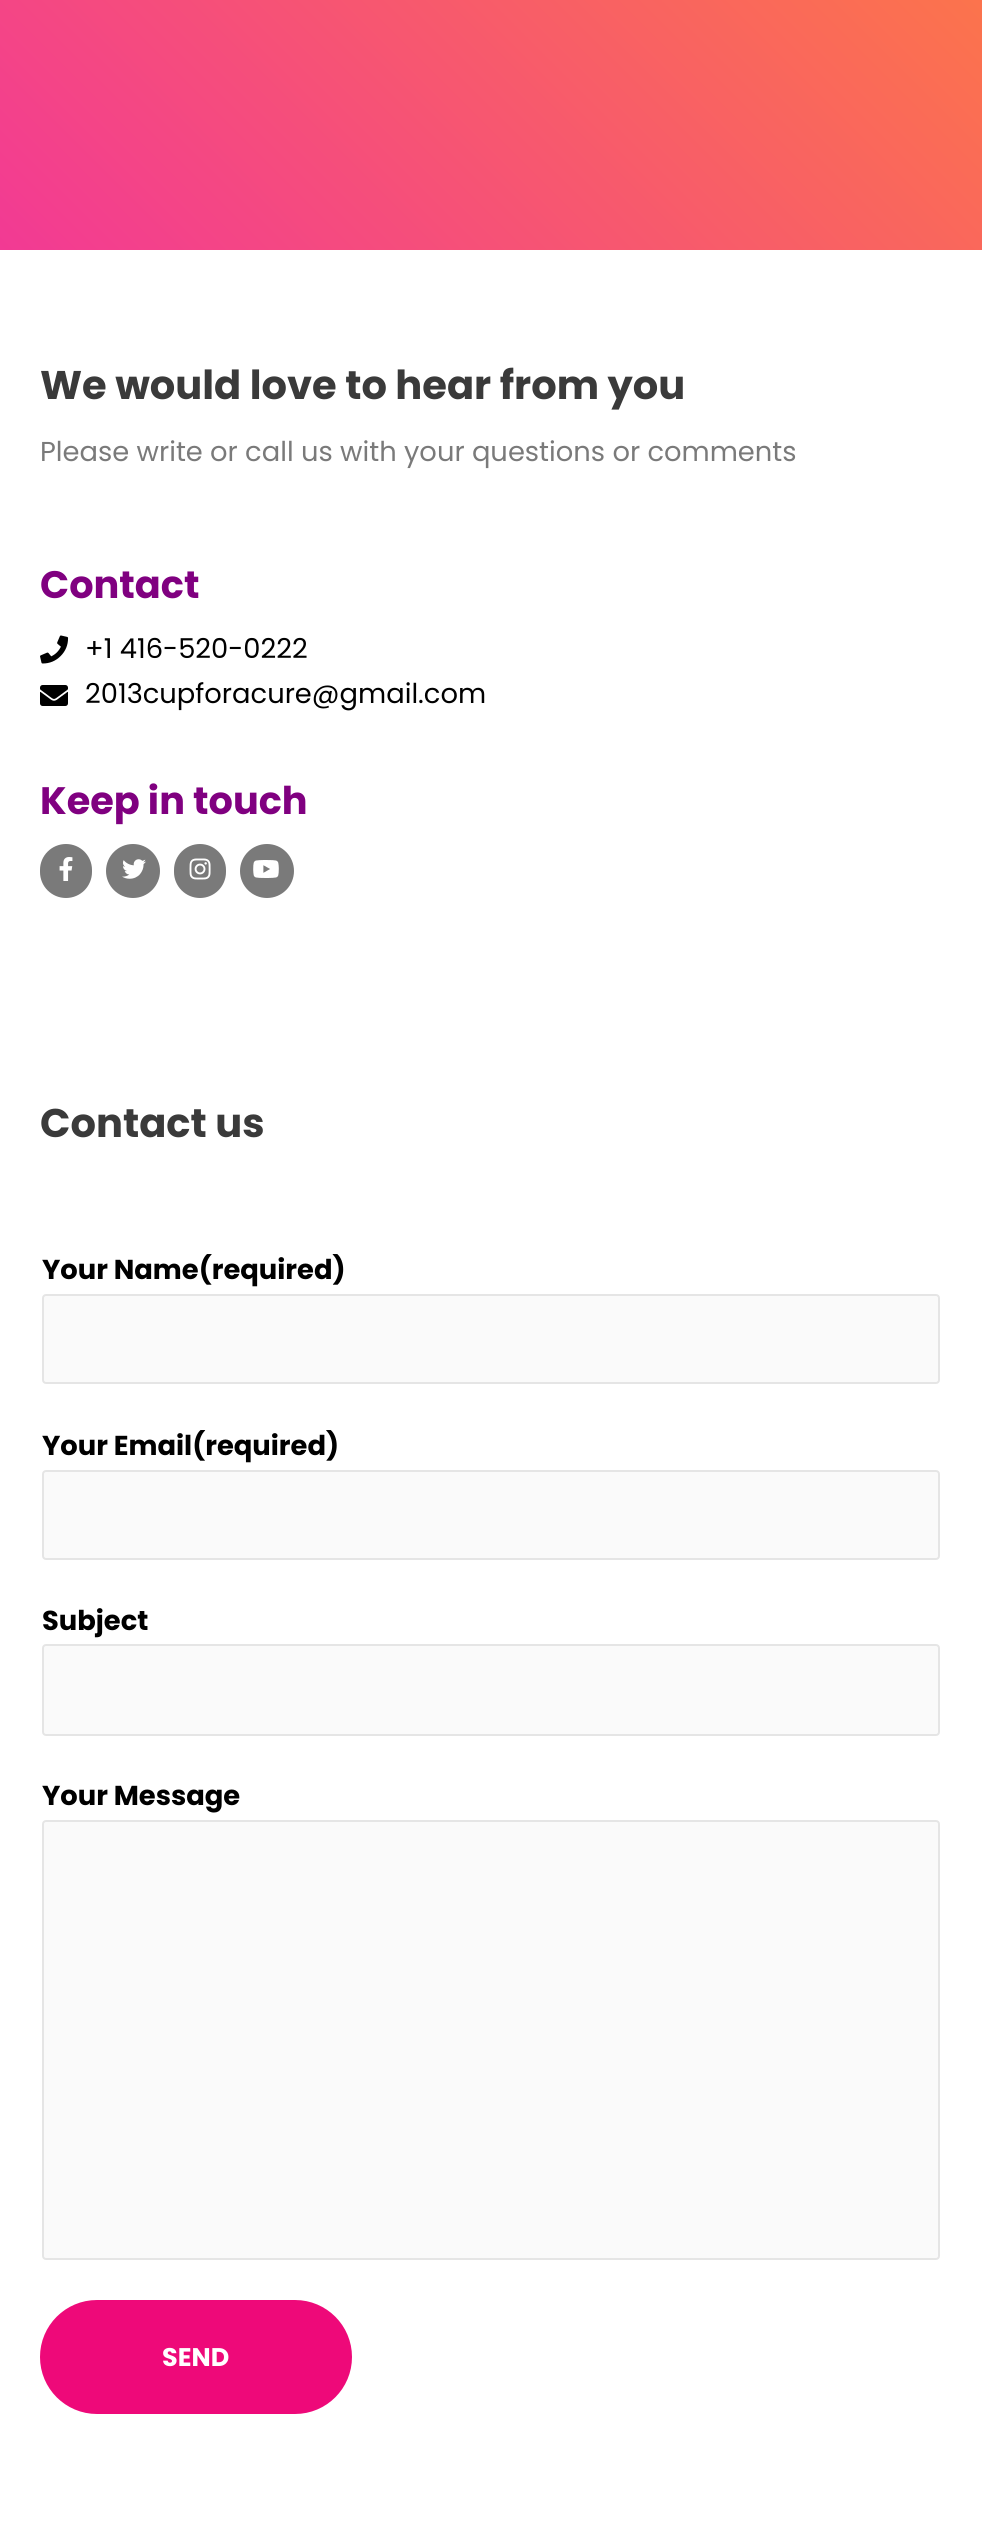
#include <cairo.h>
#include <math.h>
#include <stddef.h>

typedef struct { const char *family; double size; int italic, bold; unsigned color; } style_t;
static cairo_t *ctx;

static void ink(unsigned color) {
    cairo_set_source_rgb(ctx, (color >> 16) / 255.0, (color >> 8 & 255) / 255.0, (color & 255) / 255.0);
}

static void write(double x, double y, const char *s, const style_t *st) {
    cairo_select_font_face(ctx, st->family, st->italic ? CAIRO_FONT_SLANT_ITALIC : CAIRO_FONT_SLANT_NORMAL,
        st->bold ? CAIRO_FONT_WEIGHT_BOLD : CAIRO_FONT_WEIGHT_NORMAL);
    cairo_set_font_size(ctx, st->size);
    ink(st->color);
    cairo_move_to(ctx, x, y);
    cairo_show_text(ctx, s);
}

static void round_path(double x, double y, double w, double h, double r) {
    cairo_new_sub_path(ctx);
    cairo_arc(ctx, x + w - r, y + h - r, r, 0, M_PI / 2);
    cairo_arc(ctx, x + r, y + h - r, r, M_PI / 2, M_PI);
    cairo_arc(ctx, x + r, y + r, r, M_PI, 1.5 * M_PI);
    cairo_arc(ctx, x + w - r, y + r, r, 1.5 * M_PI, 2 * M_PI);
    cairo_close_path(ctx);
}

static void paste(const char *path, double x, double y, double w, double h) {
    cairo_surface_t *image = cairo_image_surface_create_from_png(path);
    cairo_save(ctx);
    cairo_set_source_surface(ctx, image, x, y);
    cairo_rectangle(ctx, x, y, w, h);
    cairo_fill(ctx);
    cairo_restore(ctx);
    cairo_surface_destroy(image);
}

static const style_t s1 = {"Poppins", 40, 0, 1, 0x3a3a3a};
static const style_t s2 = {"Poppins", 27.35, 0, 0, 0x7a7a7a};
static const style_t s3 = {"Poppins", 38.25, 0, 1, 0x800080};
static const style_t s4 = {"Poppins", 27.35, 0, 0, 0x000000};
static const style_t s5 = {"Poppins", 27.35, 0, 1, 0x000000};
static const style_t s6 = {"Poppins", 25.5, 0, 1, 0xffffff};

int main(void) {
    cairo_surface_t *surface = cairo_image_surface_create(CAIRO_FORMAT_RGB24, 982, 2525);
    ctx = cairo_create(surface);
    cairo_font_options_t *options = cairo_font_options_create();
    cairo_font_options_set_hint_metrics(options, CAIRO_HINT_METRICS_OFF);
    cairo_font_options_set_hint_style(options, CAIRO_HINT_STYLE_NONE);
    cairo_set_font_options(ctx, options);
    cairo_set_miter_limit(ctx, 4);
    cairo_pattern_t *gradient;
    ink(0xffffff);
    cairo_paint(ctx);
    gradient = cairo_pattern_create_linear(74, 324, 908, -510);
    cairo_pattern_add_color_stop_rgba(gradient, 0, 0.949, 0.227, 0.58, 1);
    cairo_pattern_add_color_stop_rgba(gradient, 1, 1, 0.533, 0.2, 1);
    cairo_set_source(ctx, gradient);
    cairo_pattern_destroy(gradient);
    cairo_rectangle(ctx, 0, 0, 982, 250);
    cairo_fill(ctx);
    write(40, 399, "We would love to hear from you", &s1);
    write(40, 461, "Please write or call us with your questions or comments", &s2);
    write(40, 598, "Contact", &s3);
    paste("pic1.png", 40, 635, 29, 29);
    write(85, 658, "+1 416-520-0222", &s4);
    paste("pic2.png", 40, 685, 28, 21);
    write(85, 703, "2013cupforacure@gmail.com", &s4);
    write(40, 814, "Keep in touch", &s3);
    ink(0x7a7a7a);
    round_path(40, 844, 52, 54, 26);
    cairo_fill(ctx);
    paste("pic3.png", 59, 857, 14, 24);
    cairo_arc(ctx, 133, 871, 27, 0, 2 * M_PI);
    cairo_fill(ctx);
    paste("pic4.png", 122, 859, 24, 20);
    round_path(174, 844, 52, 54, 26);
    cairo_fill(ctx);
    paste("pic5.png", 189, 858, 22, 22);
    cairo_arc(ctx, 267, 871, 27, 0, 2 * M_PI);
    cairo_fill(ctx);
    paste("pic6.png", 253, 860, 26, 18);
    write(40, 1137, "Contact us", &s1);
    write(42, 1279, "Your Name(required)", &s5);
    ink(0xfafafa);
    round_path(43, 1295, 896, 88, 3);
    cairo_fill_preserve(ctx);
    ink(0xe5e5e5);
    cairo_stroke(ctx);
    write(42, 1455, "Your Email(required)", &s5);
    ink(0xfafafa);
    round_path(43, 1471, 896, 88, 3);
    cairo_fill_preserve(ctx);
    ink(0xe5e5e5);
    cairo_stroke(ctx);
    write(42, 1630, "Subject", &s5);
    ink(0xfafafa);
    round_path(43, 1645, 896, 90, 3);
    cairo_fill_preserve(ctx);
    ink(0xe5e5e5);
    cairo_stroke(ctx);
    write(42, 1805, "Your Message", &s5);
    ink(0xfafafa);
    round_path(43, 1821, 896, 438, 3);
    cairo_fill_preserve(ctx);
    ink(0xe5e5e5);
    cairo_stroke(ctx);
    ink(0xee0979);
    round_path(41, 2301, 310, 112, 56);
    cairo_fill_preserve(ctx);
    cairo_stroke(ctx);
    write(162, 2366, "SEND", &s6);
    cairo_surface_write_to_png(surface, "screenshot.png");
    cairo_font_options_destroy(options);
    cairo_destroy(ctx);
    cairo_surface_destroy(surface);
    return 0;
}
